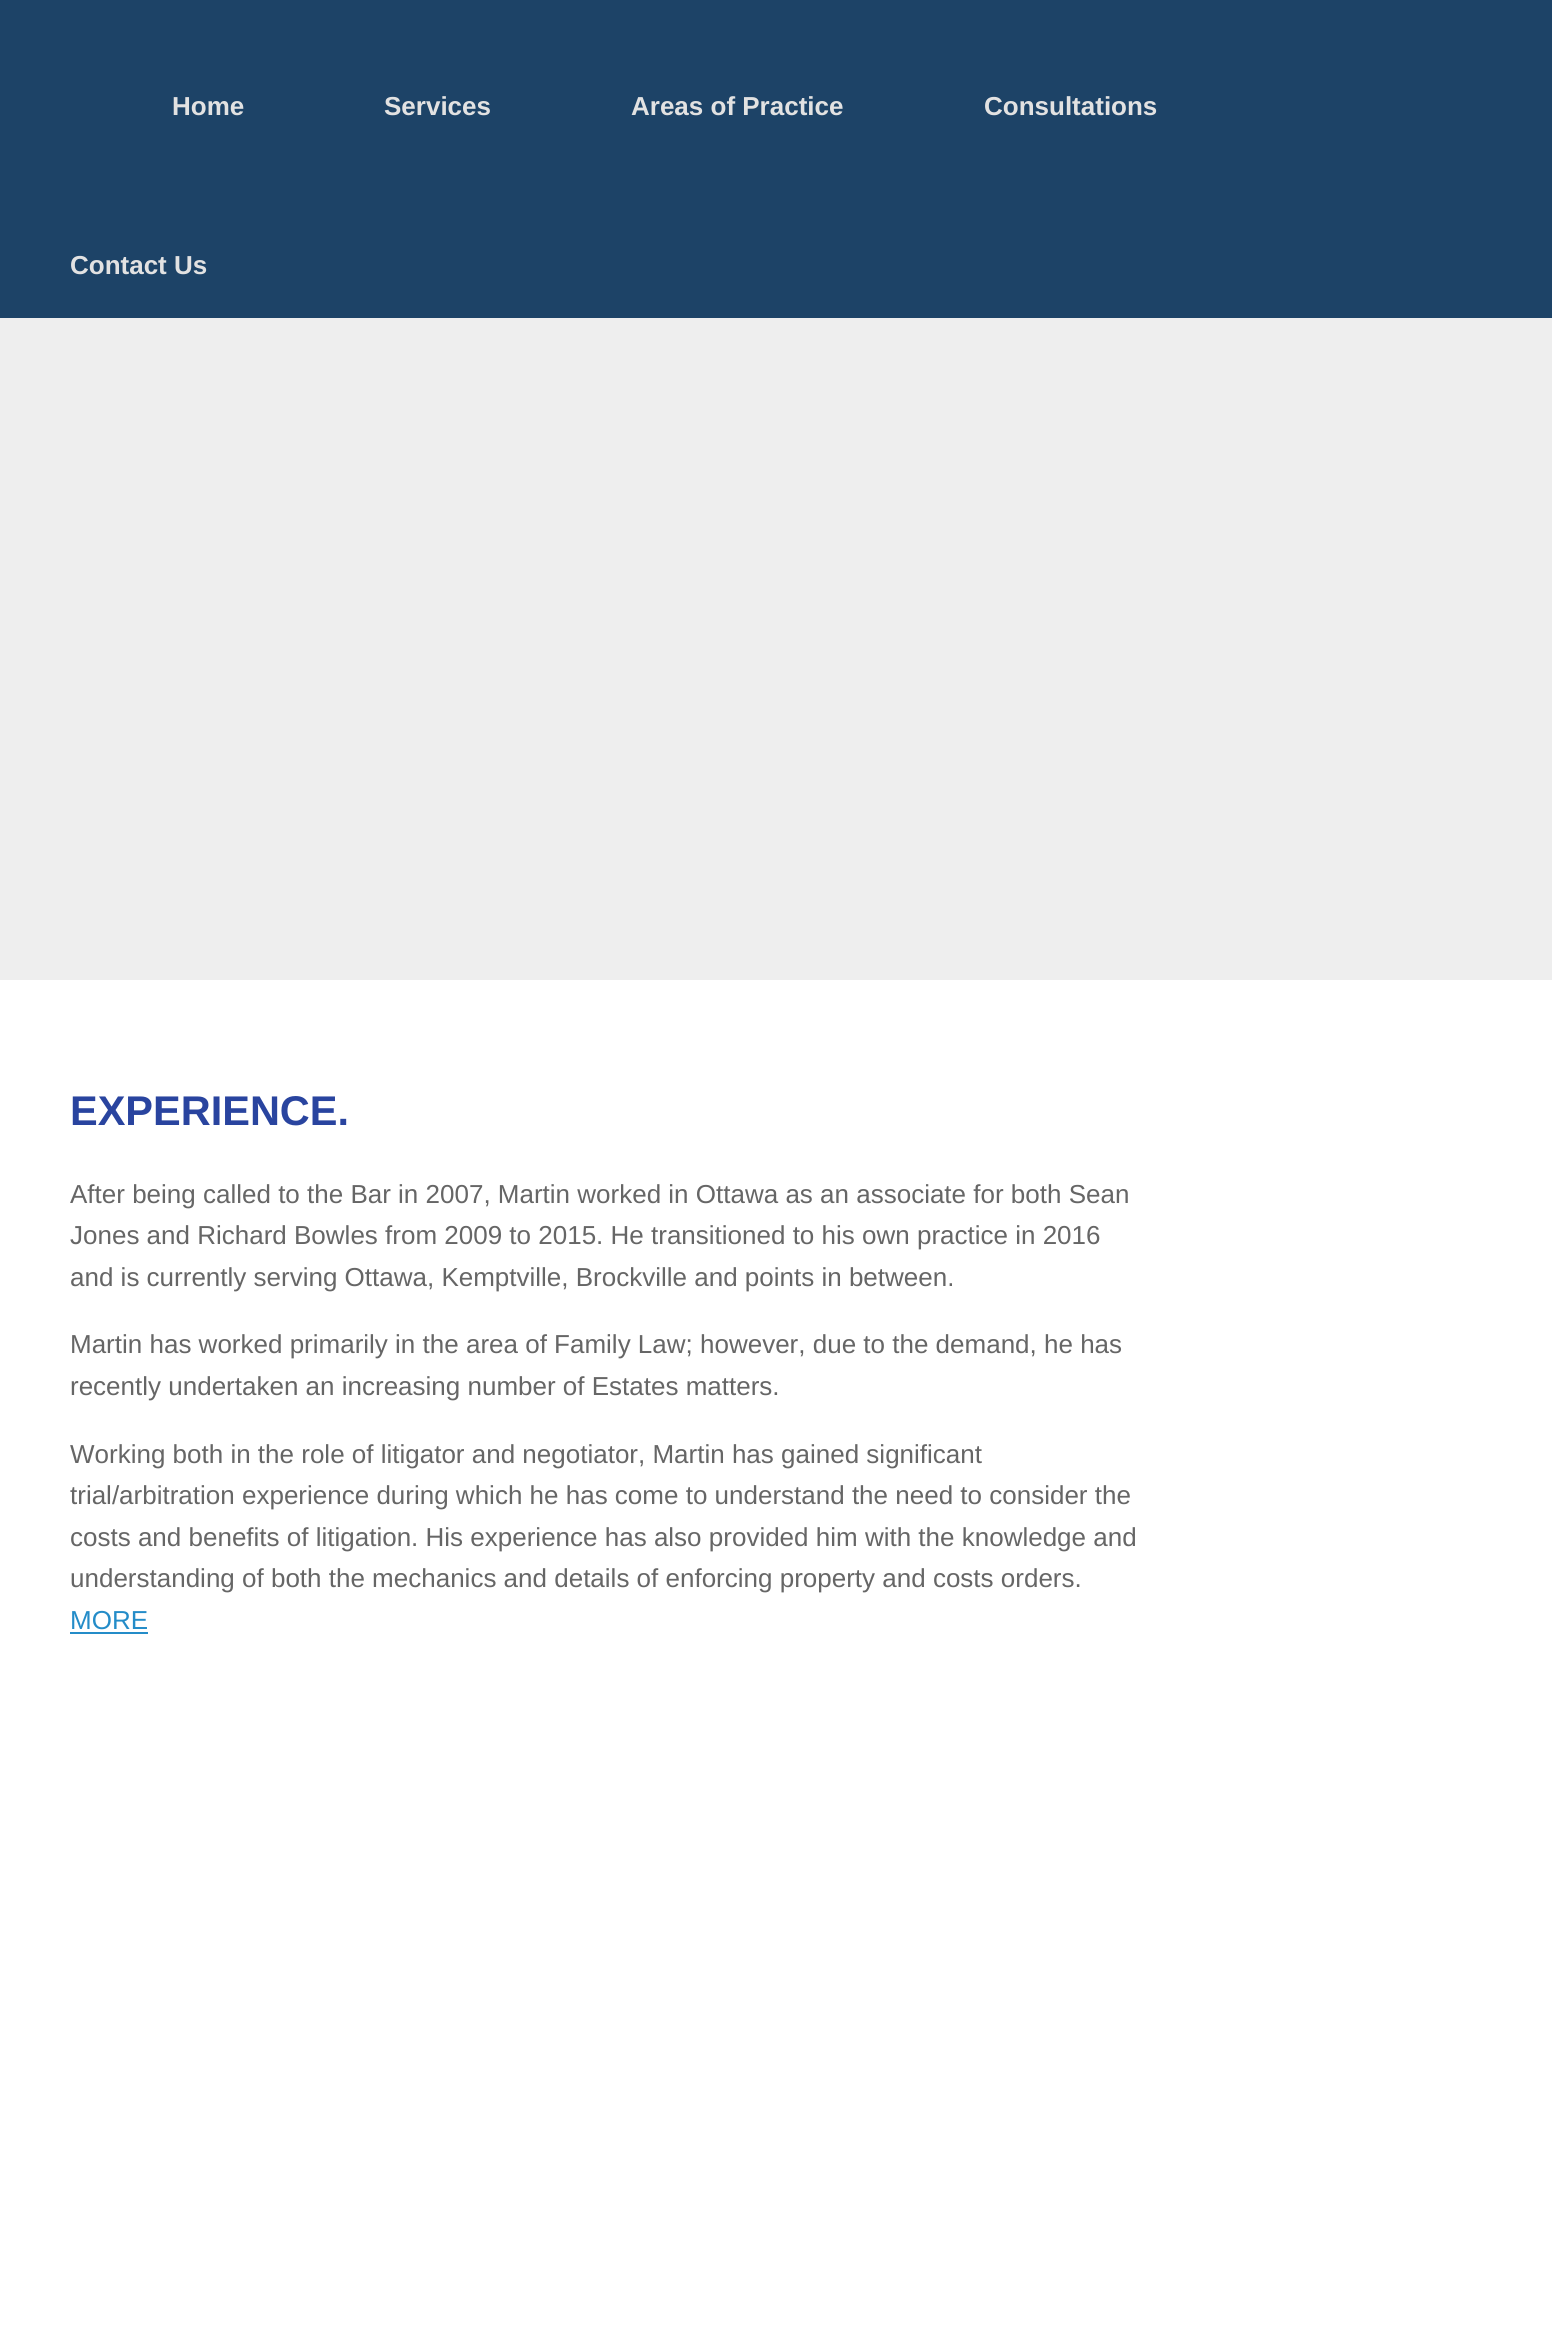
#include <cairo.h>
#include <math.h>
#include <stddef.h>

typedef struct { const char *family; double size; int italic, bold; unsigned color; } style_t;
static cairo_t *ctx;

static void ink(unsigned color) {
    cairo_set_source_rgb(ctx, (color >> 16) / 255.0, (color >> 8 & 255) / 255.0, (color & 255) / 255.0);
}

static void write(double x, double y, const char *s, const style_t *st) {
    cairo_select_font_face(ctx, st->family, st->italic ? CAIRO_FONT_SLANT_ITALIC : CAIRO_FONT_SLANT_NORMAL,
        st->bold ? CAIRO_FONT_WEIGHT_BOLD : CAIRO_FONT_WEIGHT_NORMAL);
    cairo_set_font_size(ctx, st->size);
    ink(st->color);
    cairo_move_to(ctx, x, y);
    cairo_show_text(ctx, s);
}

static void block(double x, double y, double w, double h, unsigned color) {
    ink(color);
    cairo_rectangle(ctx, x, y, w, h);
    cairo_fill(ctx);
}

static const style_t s1 = {"Liberation Sans", 26, 0, 1, 0xe2e2e2};
static const style_t s2 = {"Liberation Sans", 41.5, 0, 1, 0x29449f};
static const style_t s3 = {"Liberation Sans", 26, 0, 0, 0x666666};
static const style_t s4 = {"Liberation Sans", 26, 0, 0, 0x248cc8};

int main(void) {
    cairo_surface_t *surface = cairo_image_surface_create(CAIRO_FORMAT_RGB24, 1552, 2334);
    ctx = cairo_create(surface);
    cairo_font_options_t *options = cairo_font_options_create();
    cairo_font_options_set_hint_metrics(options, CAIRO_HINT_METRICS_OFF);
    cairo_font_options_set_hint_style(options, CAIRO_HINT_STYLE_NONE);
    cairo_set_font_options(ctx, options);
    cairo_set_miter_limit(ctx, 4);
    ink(0xffffff);
    cairo_paint(ctx);
    block(0, 0, 1552, 318, 0x1d4367);
    write(172, 115, "Home", &s1);
    write(384, 115, "Services", &s1);
    write(631, 115, "Areas of Practice", &s1);
    write(984, 115, "Consultations", &s1);
    write(70, 274, "Contact Us", &s1);
    block(0, 318, 1552, 662, 0xeeeeee);
    write(70, 1125, "EXPERIENCE.", &s2);
    write(70, 1203, "After being called to the Bar in 2007, Martin worked in Ottawa as an associate for both Sean", &s3);
    write(70, 1244, "Jones and Richard Bowles from 2009 to 2015. He transitioned to his own practice in 2016", &s3);
    write(70, 1286, "and is currently serving Ottawa, Kemptville, Brockville and points in between.", &s3);
    write(70, 1353, "Martin has worked primarily in the area of Family Law; however, due to the demand, he has", &s3);
    write(70, 1395, "recently undertaken an increasing number of Estates matters.", &s3);
    write(70, 1463, "Working both in the role of litigator and negotiator, Martin has gained significant", &s3);
    write(70, 1504, "trial/arbitration experience during which he has come to understand the need to consider the", &s3);
    write(70, 1546, "costs and benefits of litigation. His experience has also provided him with the knowledge and", &s3);
    write(70, 1587, "understanding of both the mechanics and details of enforcing property and costs orders.", &s3);
    write(70, 1629, "MORE", &s4);
    block(70, 1632, 78, 2, 0x248cc8);
    cairo_surface_write_to_png(surface, "screenshot.png");
    cairo_font_options_destroy(options);
    cairo_destroy(ctx);
    cairo_surface_destroy(surface);
    return 0;
}
